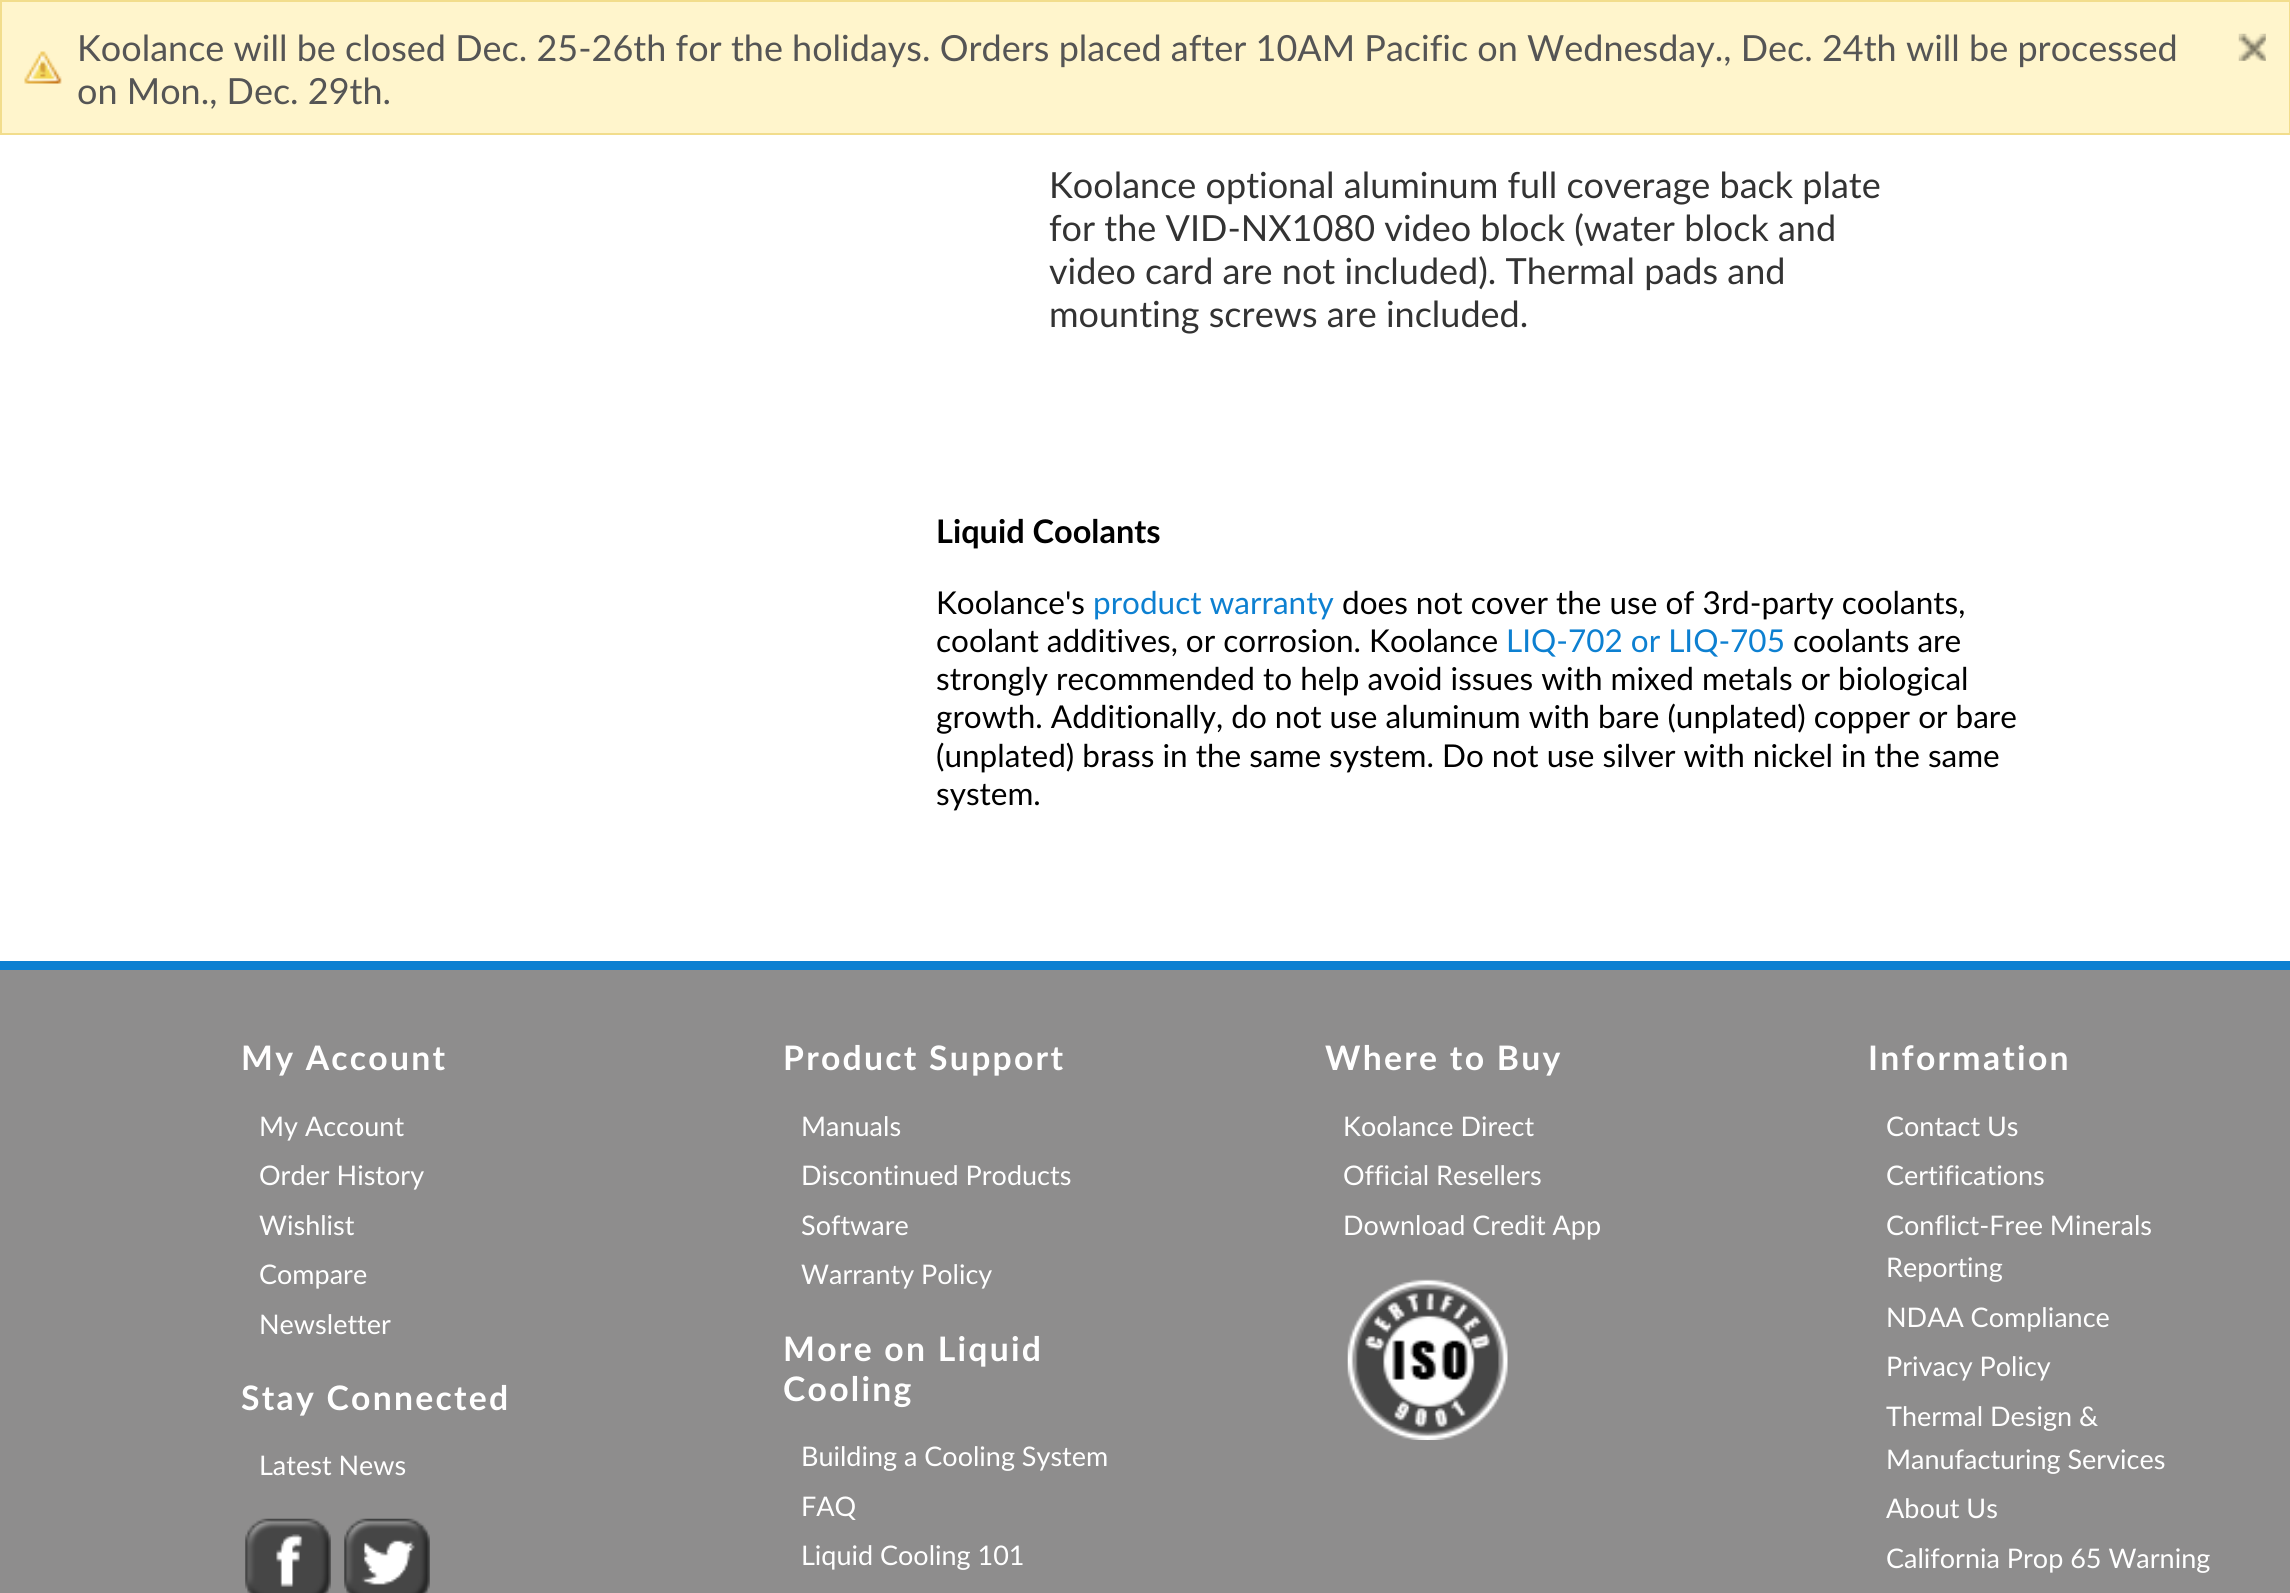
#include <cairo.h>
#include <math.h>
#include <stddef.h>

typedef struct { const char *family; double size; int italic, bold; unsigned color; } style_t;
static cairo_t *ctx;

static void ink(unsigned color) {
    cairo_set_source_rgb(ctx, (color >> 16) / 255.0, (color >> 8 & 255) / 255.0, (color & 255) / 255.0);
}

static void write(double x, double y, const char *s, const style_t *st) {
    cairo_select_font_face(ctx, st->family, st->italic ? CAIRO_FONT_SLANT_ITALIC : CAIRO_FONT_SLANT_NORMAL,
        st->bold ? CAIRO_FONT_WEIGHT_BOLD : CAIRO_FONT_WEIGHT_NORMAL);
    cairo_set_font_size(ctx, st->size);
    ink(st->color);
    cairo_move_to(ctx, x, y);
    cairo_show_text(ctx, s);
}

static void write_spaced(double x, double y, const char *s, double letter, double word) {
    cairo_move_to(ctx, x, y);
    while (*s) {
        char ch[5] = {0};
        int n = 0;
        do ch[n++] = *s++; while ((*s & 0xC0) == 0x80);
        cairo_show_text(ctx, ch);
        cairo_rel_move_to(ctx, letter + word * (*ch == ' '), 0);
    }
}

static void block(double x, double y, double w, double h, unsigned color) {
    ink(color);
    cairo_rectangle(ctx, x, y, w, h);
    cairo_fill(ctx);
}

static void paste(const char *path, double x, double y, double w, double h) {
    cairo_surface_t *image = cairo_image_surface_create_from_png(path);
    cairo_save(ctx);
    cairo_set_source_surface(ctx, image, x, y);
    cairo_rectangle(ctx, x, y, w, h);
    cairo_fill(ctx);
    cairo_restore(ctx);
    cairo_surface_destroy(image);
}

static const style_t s1 = {"Lato", 36, 0, 0, 0x555555};
static const style_t s2 = {"Lato", 36, 0, 0, 0x333333};
static const style_t s3 = {"Lato", 32.5, 0, 1, 0x000000};
static const style_t s4 = {"Lato", 31.5, 0, 0, 0x000000};
static const style_t s5 = {"Lato", 31.5, 0, 0, 0x0d80d1};
static const style_t s6 = {"Lato", 27, 0, 0, 0xffffff};

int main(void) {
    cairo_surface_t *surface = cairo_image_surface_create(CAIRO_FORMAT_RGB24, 2290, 1593);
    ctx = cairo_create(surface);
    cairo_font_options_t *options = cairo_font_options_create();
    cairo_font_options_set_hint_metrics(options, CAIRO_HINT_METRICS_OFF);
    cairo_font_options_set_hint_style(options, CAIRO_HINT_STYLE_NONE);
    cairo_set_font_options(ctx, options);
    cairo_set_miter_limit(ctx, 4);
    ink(0xffffff);
    cairo_paint(ctx);
    block(2, 2, 2287, 131, 0xfff5cc);
    paste("pic1.png", 24, 51, 38, 33);
    cairo_rectangle(ctx, 1, 1, 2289, 133);
    ink(0xf2dd8c);
    cairo_stroke(ctx);
    write(77, 61, "Koolance will be closed Dec. 25-26th for the holidays. Orders placed after 10AM Pacific on Wednesday., Dec. 24th will be processed", &s1);
    write(77, 104, "on Mon., Dec. 29th.", &s1);
    paste("pic2.png", 2238, 33, 28, 28);
    write(1049, 198, "Koolance optional aluminum full coverage back plate", &s2);
    write(1049, 241, "for the VID-NX1080 video block (water block and", &s2);
    write(1049, 284, "video card are not included). Thermal pads and", &s2);
    write(1049, 327, "mounting screws are included.", &s2);
    write(936, 543, "Liquid Coolants", &s3);
    write(936, 614, "Koolance's", &s4);
    write(1093, 614, "product warranty", &s5);
    write(1342, 614, "does not cover the use of 3rd-party coolants,", &s4);
    write(936, 652, "coolant additives, or corrosion. Koolance", &s4);
    write(1506, 652, "LIQ-702 or LIQ-705", &s5);
    write(1793, 652, "coolants are", &s4);
    write(936, 690, "strongly recommended to help avoid issues with mixed metals or biological", &s4);
    write(936, 728, "growth. Additionally, do not use aluminum with bare (unplated) copper or bare", &s4);
    write(936, 767, "(unplated) brass in the same system. Do not use silver with nickel in the same", &s4);
    write(936, 805, "system.", &s4);
    block(0, 970, 2290, 623, 0x8e8d8d);
    block(0, 961, 2290, 9, 0x0d80d1);
    cairo_select_font_face(ctx, "Lato", CAIRO_FONT_SLANT_NORMAL, CAIRO_FONT_WEIGHT_BOLD);
    cairo_set_font_size(ctx, 33.75);
    ink(0xffffff);
    write_spaced(241, 1070, "My Account", 2.25, 0);
    write(259, 1136, "My Account", &s6);
    write(259, 1185, "Order History", &s6);
    write(259, 1235, "Wishlist", &s6);
    write(259, 1284, "Compare", &s6);
    write(259, 1334, "Newsletter", &s6);
    cairo_select_font_face(ctx, "Lato", CAIRO_FONT_SLANT_NORMAL, CAIRO_FONT_WEIGHT_BOLD);
    cairo_set_font_size(ctx, 33.75);
    write_spaced(241, 1410, "Stay Connected", 2.25, 0);
    write(259, 1475, "Latest News", &s6);
    paste("pic3.png", 245, 1518, 86, 75);
    paste("pic4.png", 344, 1518, 86, 75);
    cairo_select_font_face(ctx, "Lato", CAIRO_FONT_SLANT_NORMAL, CAIRO_FONT_WEIGHT_BOLD);
    cairo_set_font_size(ctx, 33.75);
    write_spaced(783, 1070, "Product Support", 2.25, 0);
    write(801, 1136, "Manuals", &s6);
    write(801, 1185, "Discontinued Products", &s6);
    write(801, 1235, "Software", &s6);
    write(801, 1284, "Warranty Policy", &s6);
    cairo_select_font_face(ctx, "Lato", CAIRO_FONT_SLANT_NORMAL, CAIRO_FONT_WEIGHT_BOLD);
    cairo_set_font_size(ctx, 33.75);
    write_spaced(783, 1361, "More on Liquid", 2.25, 0);
    write_spaced(783, 1401, "Cooling", 2.25, 0);
    write(801, 1466, "Building a Cooling System", &s6);
    write(801, 1516, "FAQ", &s6);
    write(801, 1565, "Liquid Cooling 101", &s6);
    cairo_select_font_face(ctx, "Lato", CAIRO_FONT_SLANT_NORMAL, CAIRO_FONT_WEIGHT_BOLD);
    cairo_set_font_size(ctx, 33.75);
    write_spaced(1325, 1070, "Where to Buy", 2.25, 0);
    write(1343, 1136, "Koolance Direct", &s6);
    write(1343, 1185, "Official Resellers", &s6);
    write(1343, 1235, "Download Credit App", &s6);
    paste("pic5.png", 1347, 1279, 161, 161);
    cairo_select_font_face(ctx, "Lato", CAIRO_FONT_SLANT_NORMAL, CAIRO_FONT_WEIGHT_BOLD);
    cairo_set_font_size(ctx, 33.75);
    write_spaced(1868, 1070, "Information", 2.25, 0);
    write(1886, 1136, "Contact Us", &s6);
    write(1886, 1185, "Certifications", &s6);
    write(1886, 1235, "Conflict-Free Minerals", &s6);
    write(1886, 1277, "Reporting", &s6);
    write(1886, 1327, "NDAA Compliance", &s6);
    write(1886, 1376, "Privacy Policy", &s6);
    write(1886, 1426, "Thermal Design &", &s6);
    write(1886, 1469, "Manufacturing Services", &s6);
    write(1886, 1518, "About Us", &s6);
    write(1886, 1568, "California Prop 65 Warning", &s6);
    cairo_surface_write_to_png(surface, "screenshot.png");
    cairo_font_options_destroy(options);
    cairo_destroy(ctx);
    cairo_surface_destroy(surface);
    return 0;
}
